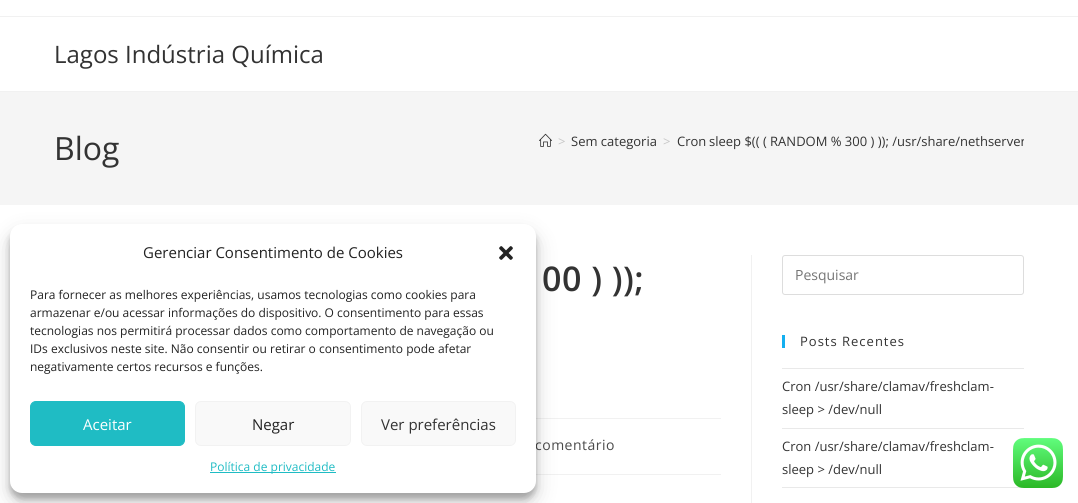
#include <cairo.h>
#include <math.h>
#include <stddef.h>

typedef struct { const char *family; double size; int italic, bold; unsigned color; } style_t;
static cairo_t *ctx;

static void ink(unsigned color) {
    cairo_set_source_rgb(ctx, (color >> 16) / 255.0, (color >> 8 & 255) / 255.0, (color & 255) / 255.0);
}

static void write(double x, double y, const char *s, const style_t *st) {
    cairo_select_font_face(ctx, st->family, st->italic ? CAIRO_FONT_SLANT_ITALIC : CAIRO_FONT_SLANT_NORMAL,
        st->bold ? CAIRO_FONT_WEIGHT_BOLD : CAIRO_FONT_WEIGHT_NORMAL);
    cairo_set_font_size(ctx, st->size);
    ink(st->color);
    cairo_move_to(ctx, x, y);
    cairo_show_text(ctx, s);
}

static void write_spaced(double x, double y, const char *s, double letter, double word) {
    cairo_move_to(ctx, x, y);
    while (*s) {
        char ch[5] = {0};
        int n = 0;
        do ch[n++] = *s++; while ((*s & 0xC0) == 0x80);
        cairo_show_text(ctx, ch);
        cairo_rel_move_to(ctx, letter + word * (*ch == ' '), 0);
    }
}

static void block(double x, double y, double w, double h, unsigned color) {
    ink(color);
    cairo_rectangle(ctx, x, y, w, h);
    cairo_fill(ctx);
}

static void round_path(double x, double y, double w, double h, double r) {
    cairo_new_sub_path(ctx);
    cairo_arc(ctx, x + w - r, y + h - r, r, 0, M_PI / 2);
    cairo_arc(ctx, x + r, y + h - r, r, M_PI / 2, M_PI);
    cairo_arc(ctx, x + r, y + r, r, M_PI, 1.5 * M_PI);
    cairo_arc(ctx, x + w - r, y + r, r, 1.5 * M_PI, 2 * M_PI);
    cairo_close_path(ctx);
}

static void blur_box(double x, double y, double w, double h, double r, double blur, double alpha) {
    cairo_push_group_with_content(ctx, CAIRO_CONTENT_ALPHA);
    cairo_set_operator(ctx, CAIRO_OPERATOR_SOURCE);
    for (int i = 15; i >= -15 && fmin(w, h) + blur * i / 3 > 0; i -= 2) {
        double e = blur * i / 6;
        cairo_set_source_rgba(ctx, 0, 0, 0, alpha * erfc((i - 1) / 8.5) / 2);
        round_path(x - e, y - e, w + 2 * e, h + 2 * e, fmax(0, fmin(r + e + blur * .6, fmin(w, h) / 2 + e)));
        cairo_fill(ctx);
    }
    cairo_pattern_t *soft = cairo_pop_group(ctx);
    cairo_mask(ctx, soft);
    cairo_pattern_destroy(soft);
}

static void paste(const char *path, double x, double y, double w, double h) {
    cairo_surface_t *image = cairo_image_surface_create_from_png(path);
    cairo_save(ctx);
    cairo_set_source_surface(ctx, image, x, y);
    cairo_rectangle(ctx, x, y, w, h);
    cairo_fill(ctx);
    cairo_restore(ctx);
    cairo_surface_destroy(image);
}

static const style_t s1 = {"Open Sans", 24, 0, 0, 0x333333};
static const style_t s2 = {"Open Sans", 32, 0, 0, 0x333333};
static const style_t s3 = {"Open Sans", 13, 0, 0, 0xc6c6c6};
static const style_t s4 = {"Open Sans", 13, 0, 0, 0x333333};
static const style_t s5 = {"Open Sans", 14, 0, 0, 0x757575};
static const style_t s6 = {"Open Sans", 15, 0, 0, 0x222222};
static const style_t s7 = {"Open Sans", 12, 0, 0, 0x222222};
static const style_t s8 = {"Open Sans", 15, 0, 0, 0xffffff};
static const style_t s9 = {"Open Sans", 15, 0, 0, 0x333333};
static const style_t s10 = {"Open Sans", 12, 0, 0, 0x1fbcc4};

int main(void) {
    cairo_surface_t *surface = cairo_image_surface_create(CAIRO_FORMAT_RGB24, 1078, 503);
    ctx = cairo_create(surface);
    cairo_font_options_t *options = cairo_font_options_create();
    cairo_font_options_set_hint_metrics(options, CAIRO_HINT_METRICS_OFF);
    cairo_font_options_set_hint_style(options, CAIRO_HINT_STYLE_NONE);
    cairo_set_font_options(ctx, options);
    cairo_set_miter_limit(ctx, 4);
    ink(0xffffff);
    cairo_paint(ctx);
    block(0, 16, 1078, 1, 0xf1f1f1);
    block(0, 91, 1078, 1, 0xf1f1f1);
    write(54, 63, "Lagos Indústria Química", &s1);
    block(0, 92, 1078, 113, 0xf5f5f5);
    write(54, 160, "Blog", &s2);
    paste("pic1.png", 539, 133, 13, 14);
    write(558, 146, ">", &s3);
    write(571, 146, "Sem categoria", &s4);
    write(663, 146, ">", &s3);
    write(677, 146, "Cron", &s4);
    cairo_save(ctx);
    cairo_rectangle(ctx, 539, 132, 485, 32);
    cairo_clip(ctx);
    write(709, 146, "sleep $(( ( RANDOM % 300 ) )); /usr/share/nethserver", &s4);
    cairo_restore(ctx);
    block(751, 255, 1, 248, 0xf1f1f1);
    block(536, 418, 185, 1, 0xf1f1f1);
    cairo_select_font_face(ctx, "Open Sans SemiBold", CAIRO_FONT_SLANT_NORMAL, CAIRO_FONT_WEIGHT_NORMAL);
    cairo_set_font_size(ctx, 34);
    ink(0x333333);
    write_spaced(542, 291, "00 ) ));", 0.5, 0);
    block(536, 474, 185, 1, 0xf1f1f1);
    cairo_select_font_face(ctx, "Open Sans", CAIRO_FONT_SLANT_NORMAL, CAIRO_FONT_WEIGHT_NORMAL);
    cairo_set_font_size(ctx, 14);
    ink(0x4a4a4a);
    write_spaced(535, 450, "comentário", 0.5, 0);
    round_path(782.5, 255.5, 241, 39, 2.5);
    ink(0xdddddd);
    cairo_set_line_width(ctx, 1);
    cairo_stroke(ctx);
    write(795, 280, "Pesquisar", &s5);
    block(782, 335, 3, 13, 0x13aff0);
    cairo_set_font_size(ctx, 13);
    ink(0x333333);
    write_spaced(800, 346, "Posts Recentes", 1, 0);
    block(782, 368, 242, 1, 0xe9e9e9);
    block(782, 428, 242, 1, 0xe9e9e9);
    write(782, 391, "Cron /usr/share/clamav/freshclam-", &s4);
    write(782, 414, "sleep > /dev/null", &s4);
    block(782, 487, 242, 1, 0xe9e9e9);
    write(782, 451, "Cron /usr/share/clamav/freshclam-", &s4);
    write(782, 474, "sleep > /dev/null", &s4);
    ink(0x000000);
    blur_box(10, 230, 526, 269, 12, 3, 0.23);
    blur_box(10, 234, 526, 269, 12, 10, 0.19);
    ink(0xffffff);
    round_path(10, 224, 526, 269, 12);
    cairo_fill(ctx);
    write(143, 258, "Gerenciar Consentimento de Cookies", &s6);
    paste("pic2.png", 499, 246, 14, 14);
    write(30, 299, "Para fornecer as melhores experiências, usamos tecnologias como cookies para", &s7);
    write(30, 317, "armazenar e/ou acessar informações do dispositivo. O consentimento para essas", &s7);
    write(30, 335, "tecnologias nos permitirá processar dados como comportamento de navegação ou", &s7);
    write(30, 353, "IDs exclusivos neste site. Não consentir ou retirar o consentimento pode afetar", &s7);
    write(30, 371, "negativamente certos recursos e funções.", &s7);
    ink(0x1fbcc4);
    round_path(30.5, 401.5, 154, 44, 5.5);
    cairo_fill_preserve(ctx);
    cairo_stroke(ctx);
    write(83, 430, "Aceitar", &s8);
    ink(0xf9f9f9);
    round_path(195.5, 401.5, 155, 44, 5.5);
    cairo_fill_preserve(ctx);
    ink(0xf2f2f2);
    cairo_stroke(ctx);
    write(252, 430, "Negar", &s6);
    ink(0xf9f9f9);
    round_path(361.5, 401.5, 154, 44, 5.5);
    cairo_fill_preserve(ctx);
    ink(0xf2f2f2);
    cairo_stroke(ctx);
    write(381, 430, "Ver preferências", &s9);
    block(210, 472, 126, 1, 0x1fbcc4);
    write(210, 471, "Política de privacidade", &s10);
    paste("pic3.png", 1013, 438, 50, 50);
    cairo_surface_write_to_png(surface, "screenshot.png");
    cairo_font_options_destroy(options);
    cairo_destroy(ctx);
    cairo_surface_destroy(surface);
    return 0;
}
